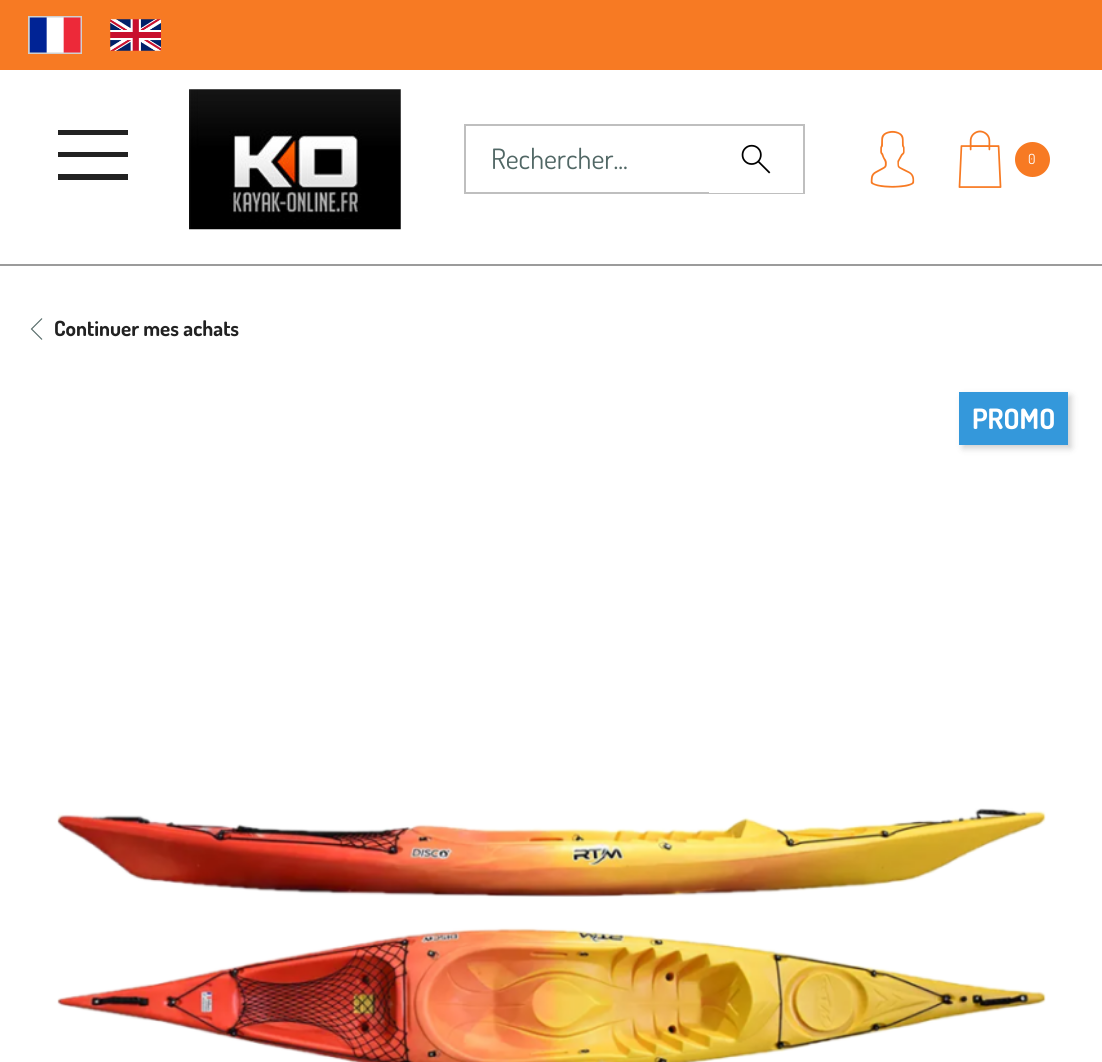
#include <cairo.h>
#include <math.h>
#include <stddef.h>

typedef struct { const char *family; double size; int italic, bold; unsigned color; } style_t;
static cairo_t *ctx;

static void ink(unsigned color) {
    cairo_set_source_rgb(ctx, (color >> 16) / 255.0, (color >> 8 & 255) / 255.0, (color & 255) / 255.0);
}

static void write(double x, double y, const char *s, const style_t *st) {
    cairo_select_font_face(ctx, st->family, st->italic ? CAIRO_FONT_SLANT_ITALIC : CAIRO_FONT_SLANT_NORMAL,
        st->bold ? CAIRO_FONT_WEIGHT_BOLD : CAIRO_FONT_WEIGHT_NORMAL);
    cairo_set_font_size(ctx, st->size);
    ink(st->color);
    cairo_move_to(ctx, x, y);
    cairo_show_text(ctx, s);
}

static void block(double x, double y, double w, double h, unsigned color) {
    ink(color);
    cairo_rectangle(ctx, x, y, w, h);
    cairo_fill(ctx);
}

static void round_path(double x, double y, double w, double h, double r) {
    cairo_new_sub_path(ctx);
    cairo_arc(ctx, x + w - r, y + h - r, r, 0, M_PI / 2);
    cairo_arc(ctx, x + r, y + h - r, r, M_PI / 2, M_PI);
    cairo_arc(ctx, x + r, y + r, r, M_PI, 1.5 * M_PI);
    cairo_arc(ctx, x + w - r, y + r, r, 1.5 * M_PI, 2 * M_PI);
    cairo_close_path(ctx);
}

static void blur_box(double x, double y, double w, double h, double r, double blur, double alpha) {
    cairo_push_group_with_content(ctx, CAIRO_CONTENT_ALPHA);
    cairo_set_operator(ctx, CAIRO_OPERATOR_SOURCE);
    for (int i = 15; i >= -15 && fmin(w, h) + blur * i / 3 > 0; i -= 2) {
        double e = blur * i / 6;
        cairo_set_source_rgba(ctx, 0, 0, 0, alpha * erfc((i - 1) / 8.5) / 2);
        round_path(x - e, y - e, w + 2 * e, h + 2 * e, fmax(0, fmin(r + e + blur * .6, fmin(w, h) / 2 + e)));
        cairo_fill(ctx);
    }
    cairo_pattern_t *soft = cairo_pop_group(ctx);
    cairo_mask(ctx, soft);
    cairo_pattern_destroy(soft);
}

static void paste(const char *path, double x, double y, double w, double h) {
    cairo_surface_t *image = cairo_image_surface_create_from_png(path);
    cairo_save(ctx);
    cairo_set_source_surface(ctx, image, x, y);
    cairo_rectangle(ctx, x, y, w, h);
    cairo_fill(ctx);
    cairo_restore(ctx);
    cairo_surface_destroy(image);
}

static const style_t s1 = {"Dosis", 28, 0, 0, 0x516765};
static const style_t s2 = {"Dosis", 14, 0, 0, 0xffffff};
static const style_t s3 = {"Dosis", 21, 0, 1, 0x222222};
static const style_t s4 = {"Dosis", 28, 0, 1, 0xffffff};

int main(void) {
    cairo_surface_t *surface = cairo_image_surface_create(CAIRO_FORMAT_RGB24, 1102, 1062);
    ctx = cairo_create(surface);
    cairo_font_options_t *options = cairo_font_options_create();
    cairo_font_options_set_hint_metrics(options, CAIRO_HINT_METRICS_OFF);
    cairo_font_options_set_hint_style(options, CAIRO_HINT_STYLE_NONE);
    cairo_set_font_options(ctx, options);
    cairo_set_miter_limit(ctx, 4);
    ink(0xffffff);
    cairo_paint(ctx);
    block(0, 0, 1102, 70, 0xf77a23);
    cairo_rectangle(ctx, 29, 17, 52, 36);
    ink(0xd0d0d0);
    cairo_stroke(ctx);
    paste("pic1.png", 29, 17, 52, 36);
    paste("pic2.png", 110, 19, 51, 32);
    block(0, 264, 1102, 2, 0x9b9b9b);
    block(58, 130, 70, 5, 0x222222);
    block(58, 152, 70, 5, 0x222222);
    block(58, 174, 70, 6, 0x222222);
    paste("pic3.png", 189, 89, 212, 141);
    cairo_rectangle(ctx, 465, 125, 339, 68);
    ink(0xbfbfbf);
    cairo_stroke(ctx);
    write(491, 169, "Rechercher...", &s1);
    block(709, 192, 94, 1, 0xffffff);
    paste("pic4.png", 741, 144, 30, 30);
    paste("pic5.png", 870, 130, 45, 58);
    paste("pic6.png", 958, 130, 44, 58);
    ink(0xf77a23);
    cairo_arc(ctx, 1032.5, 159.5, 17.5, 0, 2 * M_PI);
    cairo_fill(ctx);
    write(1028, 164, "0", &s2);
    cairo_new_path(ctx);
    cairo_move_to(ctx, 42, 318.5);
    cairo_line_to(ctx, 31.5, 329);
    cairo_line_to(ctx, 42, 339.5);
    ink(0x516765);
    cairo_set_line_width(ctx, 1.1);
    cairo_stroke(ctx);
    write(54, 336, "Continuer mes achats", &s3);
    ink(0x000000);
    blur_box(963, 396, 108, 52, 0, 3.5, 0.2);
    block(959, 392, 109, 53, 0x3498db);
    write(972, 429, "PROMO", &s4);
    paste("pic7.png", 57, 808, 989, 254);
    cairo_surface_write_to_png(surface, "screenshot.png");
    cairo_font_options_destroy(options);
    cairo_destroy(ctx);
    cairo_surface_destroy(surface);
    return 0;
}
